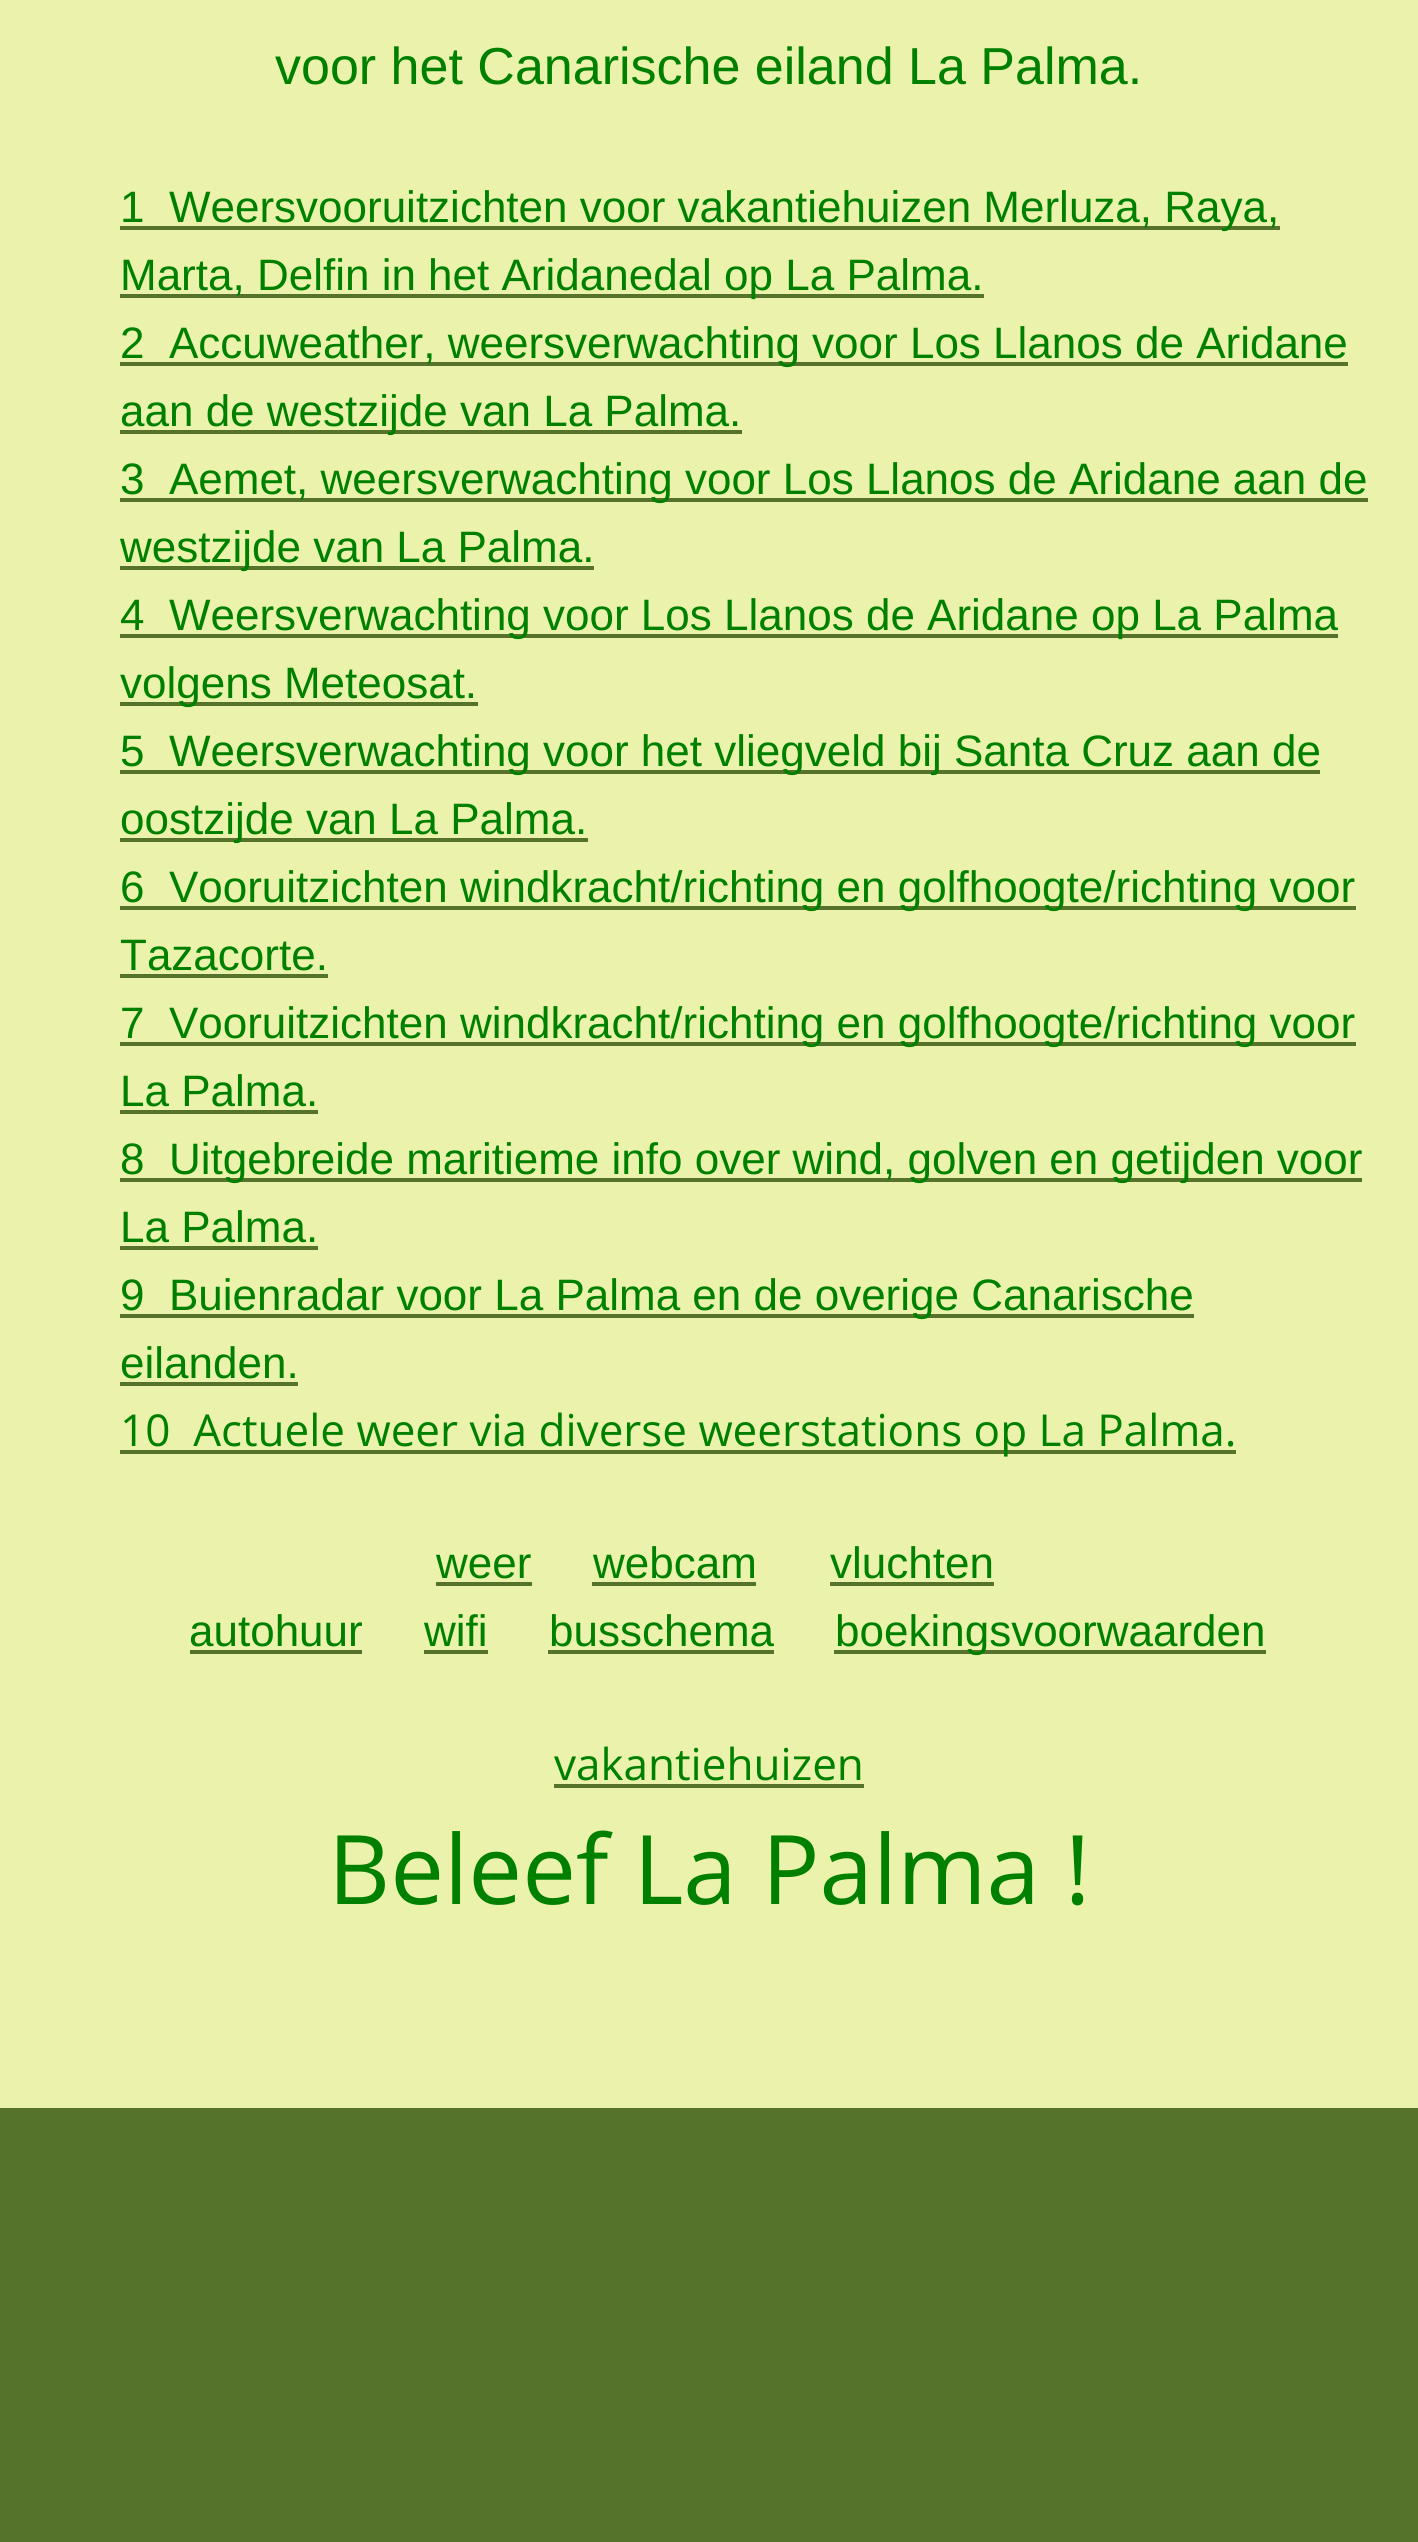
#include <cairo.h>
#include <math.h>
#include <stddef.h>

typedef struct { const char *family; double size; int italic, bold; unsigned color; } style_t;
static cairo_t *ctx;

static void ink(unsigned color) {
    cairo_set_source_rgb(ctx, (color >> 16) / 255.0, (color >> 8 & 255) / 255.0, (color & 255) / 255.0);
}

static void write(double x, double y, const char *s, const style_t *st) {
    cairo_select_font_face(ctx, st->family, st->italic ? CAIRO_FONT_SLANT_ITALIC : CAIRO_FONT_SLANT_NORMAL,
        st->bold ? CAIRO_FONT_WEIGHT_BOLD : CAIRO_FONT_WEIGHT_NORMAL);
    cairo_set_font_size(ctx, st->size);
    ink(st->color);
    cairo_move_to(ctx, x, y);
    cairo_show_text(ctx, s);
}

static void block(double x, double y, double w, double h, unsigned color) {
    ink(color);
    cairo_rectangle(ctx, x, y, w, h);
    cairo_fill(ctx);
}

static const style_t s1 = {"Liberation Sans", 52, 0, 0, 0x008000};
static const style_t s2 = {"Liberation Sans", 44, 0, 0, 0x008000};
static const style_t s3 = {"Open Sans", 44, 0, 0, 0x008000};
static const style_t s4 = {"Open Sans", 96, 0, 0, 0x008000};

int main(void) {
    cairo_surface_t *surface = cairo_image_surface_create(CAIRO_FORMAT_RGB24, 1418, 2542);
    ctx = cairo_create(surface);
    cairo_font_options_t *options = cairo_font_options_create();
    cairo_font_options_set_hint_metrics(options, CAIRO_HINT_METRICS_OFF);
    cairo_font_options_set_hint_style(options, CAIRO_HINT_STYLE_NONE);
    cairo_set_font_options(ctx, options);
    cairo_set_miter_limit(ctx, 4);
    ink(0x56732c);
    cairo_paint(ctx);
    block(0, 0, 1418, 2108, 0xeaf2ac);
    write(275, 84, "voor het Canarische eiland La Palma.", &s1);
    block(120, 226, 1160, 4, 0x56732c);
    write(120, 222, "1  Weersvooruitzichten voor vakantiehuizen Merluza, Raya,", &s2);
    block(120, 294, 864, 4, 0x56732c);
    write(120, 290, "Marta, Delfin in het Aridanedal op La Palma.", &s2);
    block(120, 362, 1228, 4, 0x56732c);
    write(120, 358, "2  Accuweather, weersverwachting voor Los Llanos de Aridane", &s2);
    block(120, 430, 622, 4, 0x56732c);
    write(120, 426, "aan de westzijde van La Palma.", &s2);
    block(120, 498, 1248, 4, 0x56732c);
    write(120, 494, "3  Aemet, weersverwachting voor Los Llanos de Aridane aan de", &s2);
    block(120, 566, 474, 4, 0x56732c);
    write(120, 562, "westzijde van La Palma.", &s2);
    block(120, 634, 1218, 4, 0x56732c);
    write(120, 630, "4  Weersverwachting voor Los Llanos de Aridane op La Palma", &s2);
    block(120, 702, 358, 4, 0x56732c);
    write(120, 698, "volgens Meteosat.", &s2);
    block(120, 770, 1200, 4, 0x56732c);
    write(120, 766, "5  Weersverwachting voor het vliegveld bij Santa Cruz aan de", &s2);
    block(120, 838, 468, 4, 0x56732c);
    write(120, 834, "oostzijde van La Palma.", &s2);
    block(120, 906, 1236, 4, 0x56732c);
    write(120, 902, "6  Vooruitzichten windkracht/richting en golfhoogte/richting voor", &s2);
    write(120, 970, "Tazacorte.", &s2);
    block(120, 974, 208, 4, 0x56732c);
    block(120, 1042, 1236, 4, 0x56732c);
    write(120, 1038, "7  Vooruitzichten windkracht/richting en golfhoogte/richting voor", &s2);
    write(120, 1106, "La Palma.", &s2);
    block(120, 1110, 198, 4, 0x56732c);
    block(120, 1178, 1242, 4, 0x56732c);
    write(120, 1174, "8  Uitgebreide maritieme info over wind, golven en getijden voor", &s2);
    write(120, 1242, "La Palma.", &s2);
    block(120, 1246, 198, 4, 0x56732c);
    block(120, 1314, 1074, 4, 0x56732c);
    write(120, 1310, "9  Buienradar voor La Palma en de overige Canarische", &s2);
    write(120, 1378, "eilanden.", &s2);
    block(120, 1382, 178, 4, 0x56732c);
    block(120, 1450, 1116, 4, 0x56732c);
    write(120, 1446, "10  Actuele weer via diverse weerstations op La Palma.", &s3);
    write(436, 1578, "weer", &s2);
    block(436, 1582, 96, 4, 0x56732c);
    write(593, 1578, "webcam", &s2);
    block(592, 1582, 164, 4, 0x56732c);
    write(830, 1578, "vluchten", &s2);
    block(830, 1582, 164, 4, 0x56732c);
    write(189, 1646, "autohuur", &s2);
    block(190, 1650, 172, 4, 0x56732c);
    write(424, 1646, "wifi", &s2);
    block(424, 1650, 64, 4, 0x56732c);
    write(549, 1646, "busschema", &s2);
    block(548, 1650, 226, 4, 0x56732c);
    block(834, 1650, 432, 4, 0x56732c);
    write(835, 1646, "boekingsvoorwaarden", &s2);
    write(554, 1780, "vakantiehuizen", &s3);
    block(554, 1784, 310, 4, 0x56732c);
    write(328, 1904, "Beleef La Palma !", &s4);
    cairo_surface_write_to_png(surface, "screenshot.png");
    cairo_font_options_destroy(options);
    cairo_destroy(ctx);
    cairo_surface_destroy(surface);
    return 0;
}
